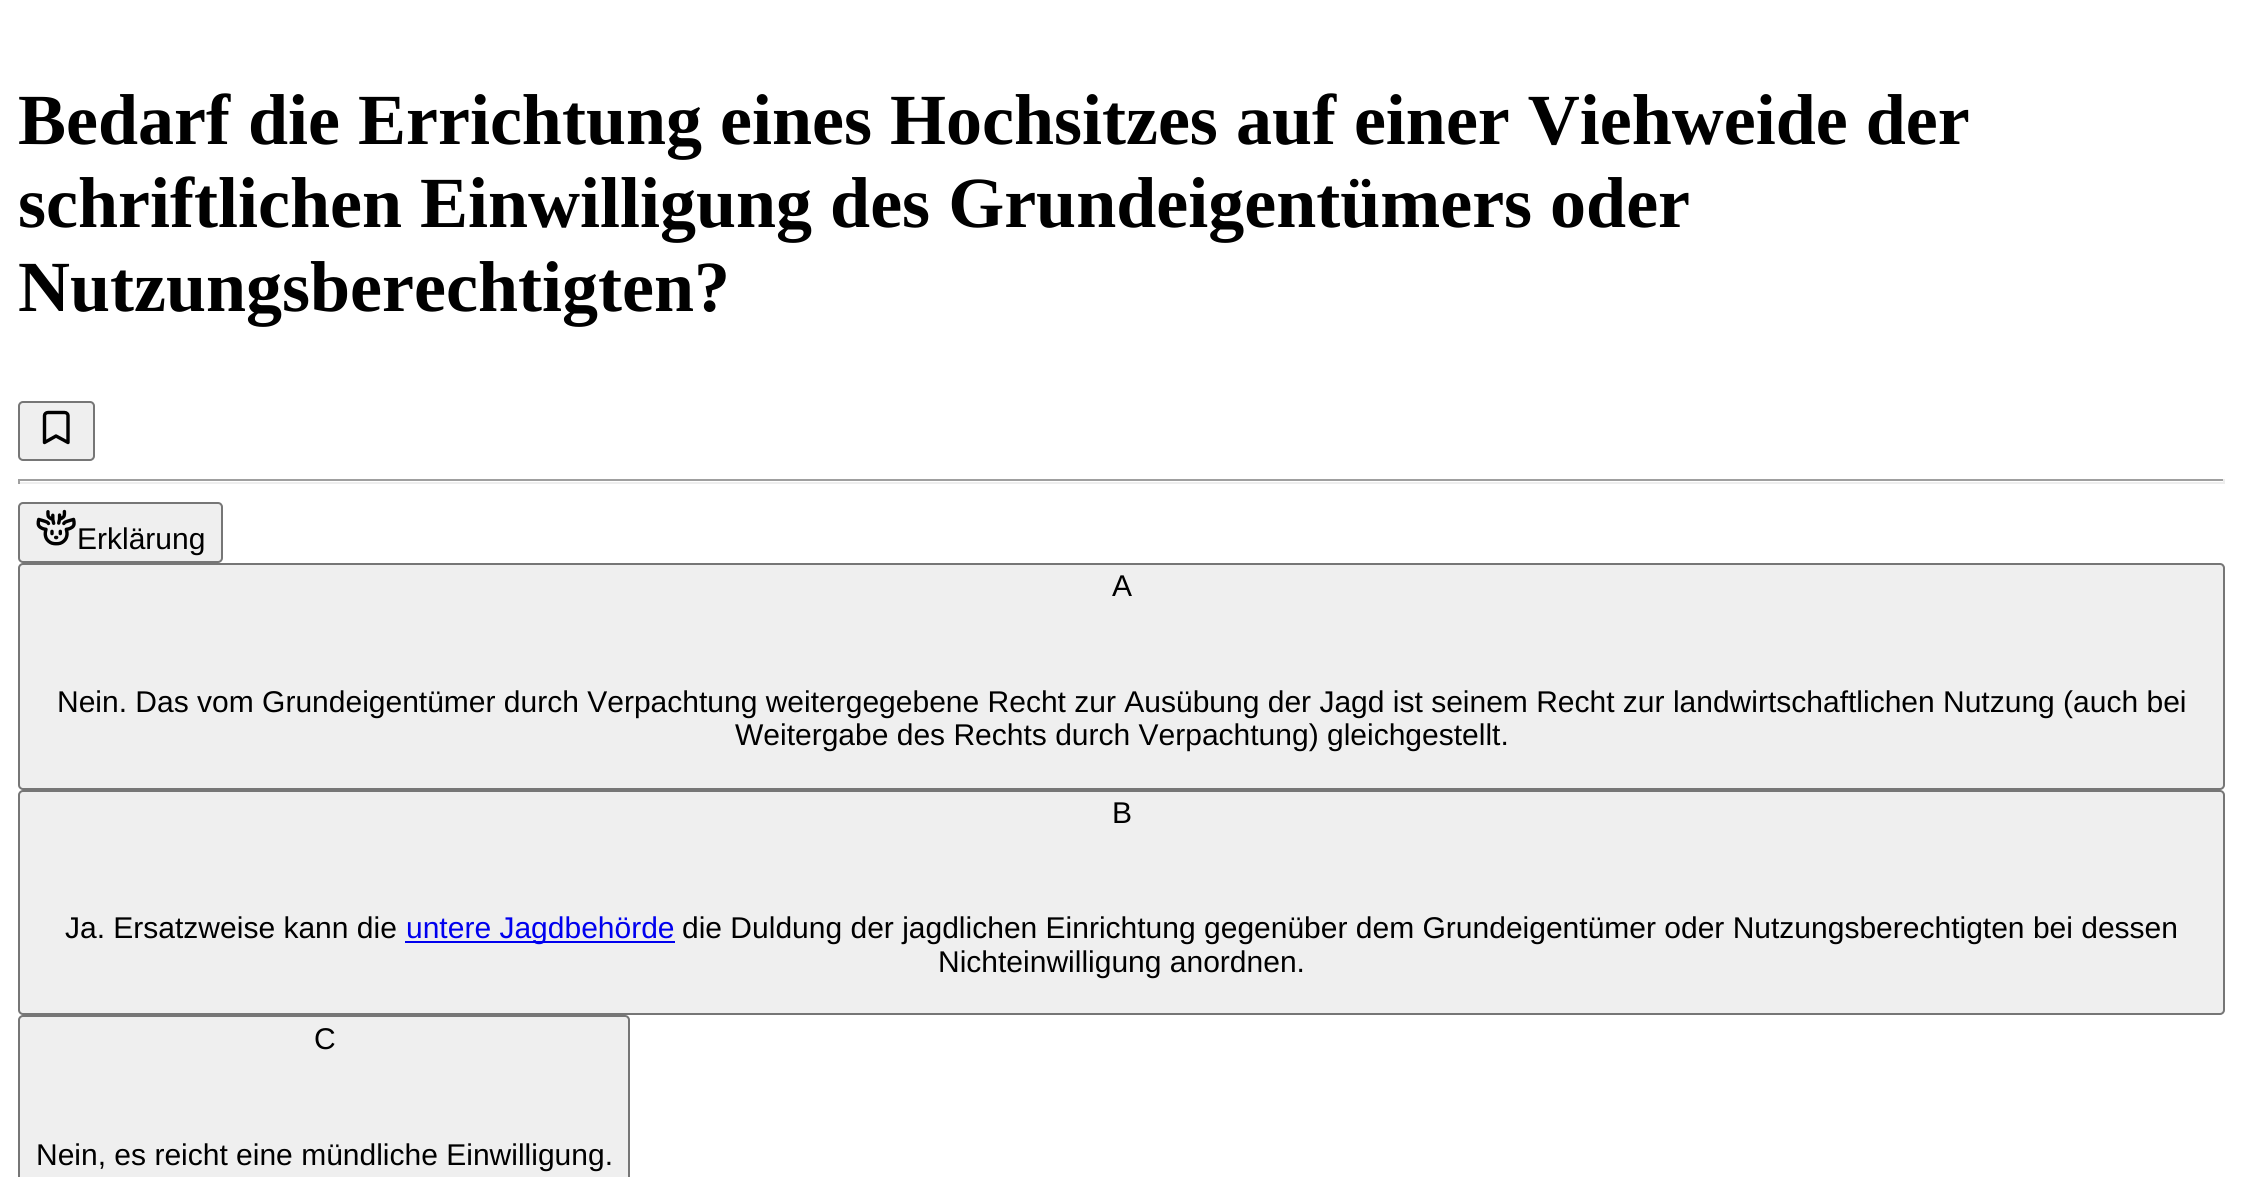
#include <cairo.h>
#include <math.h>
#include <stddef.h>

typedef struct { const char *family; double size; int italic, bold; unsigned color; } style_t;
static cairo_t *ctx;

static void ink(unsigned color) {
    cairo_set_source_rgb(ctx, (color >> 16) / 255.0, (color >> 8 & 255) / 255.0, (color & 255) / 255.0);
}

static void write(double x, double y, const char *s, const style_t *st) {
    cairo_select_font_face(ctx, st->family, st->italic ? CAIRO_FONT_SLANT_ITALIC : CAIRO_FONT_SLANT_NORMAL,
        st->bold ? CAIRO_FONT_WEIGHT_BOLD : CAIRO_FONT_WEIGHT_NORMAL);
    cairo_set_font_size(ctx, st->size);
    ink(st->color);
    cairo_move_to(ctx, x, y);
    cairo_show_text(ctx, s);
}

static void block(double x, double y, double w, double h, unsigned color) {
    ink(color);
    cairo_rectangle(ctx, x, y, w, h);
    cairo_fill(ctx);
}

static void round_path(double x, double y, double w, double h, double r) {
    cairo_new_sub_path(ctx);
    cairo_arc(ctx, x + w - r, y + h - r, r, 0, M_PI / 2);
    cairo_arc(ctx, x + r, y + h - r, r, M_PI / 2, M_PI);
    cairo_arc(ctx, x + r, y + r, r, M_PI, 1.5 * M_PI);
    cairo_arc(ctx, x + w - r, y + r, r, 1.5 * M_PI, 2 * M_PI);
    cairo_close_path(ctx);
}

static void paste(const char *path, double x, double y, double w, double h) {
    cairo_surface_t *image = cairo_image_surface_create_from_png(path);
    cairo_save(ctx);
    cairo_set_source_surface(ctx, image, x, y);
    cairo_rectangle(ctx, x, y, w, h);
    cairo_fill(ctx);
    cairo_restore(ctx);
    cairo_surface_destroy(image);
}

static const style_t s1 = {"Liberation Serif", 72, 0, 1, 0x000000};
static const style_t s2 = {"Liberation Sans", 30, 0, 0, 0x000000};
static const style_t s3 = {"Liberation Sans", 30, 0, 0, 0x0000ee};

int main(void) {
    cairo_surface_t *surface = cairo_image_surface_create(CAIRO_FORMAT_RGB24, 2243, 1177);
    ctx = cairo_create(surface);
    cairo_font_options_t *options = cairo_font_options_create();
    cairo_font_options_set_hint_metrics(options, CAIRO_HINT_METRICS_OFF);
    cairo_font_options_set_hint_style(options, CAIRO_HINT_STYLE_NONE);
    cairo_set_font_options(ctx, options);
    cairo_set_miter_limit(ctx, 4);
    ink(0xffffff);
    cairo_paint(ctx);
    write(18, 144, "Bedarf die Errichtung eines Hochsitzes auf einer Viehweide der", &s1);
    write(18, 227, "schriftlichen Einwilligung des Grundeigentümers oder", &s1);
    write(18, 311, "Nutzungsberechtigten?", &s1);
    ink(0xefefef);
    round_path(19, 402, 75, 58, 4);
    cairo_fill_preserve(ctx);
    ink(0x767676);
    cairo_stroke(ctx);
    cairo_new_path(ctx);
    cairo_move_to(ctx, 68, 442.5);
    cairo_line_to(ctx, 56, 436);
    cairo_line_to(ctx, 44.5, 442.5);
    cairo_line_to(ctx, 44.5, 415.5);
    cairo_curve_to(ctx, 44.5, 414, 46, 412.5, 48, 412.5);
    cairo_line_to(ctx, 64.5, 412.5);
    cairo_curve_to(ctx, 66.5, 412.5, 68, 414, 68, 415.5);
    cairo_close_path(ctx);
    ink(0x000000);
    cairo_set_line_width(ctx, 3.4);
    cairo_set_line_cap(ctx, CAIRO_LINE_CAP_ROUND);
    cairo_set_line_join(ctx, CAIRO_LINE_JOIN_ROUND);
    cairo_stroke(ctx);
    block(18, 479, 2207, 2, 0x9f9f9f);
    block(2223, 479, 2, 5, 0xeeeeee);
    block(18, 482, 2207, 2, 0xeeeeee);
    block(18, 479, 2, 5, 0x9f9f9f);
    ink(0xefefef);
    round_path(19, 503, 203, 59, 4);
    cairo_fill_preserve(ctx);
    ink(0x767676);
    cairo_set_line_width(ctx, 2);
    cairo_set_line_cap(ctx, CAIRO_LINE_CAP_BUTT);
    cairo_set_line_join(ctx, CAIRO_LINE_JOIN_MITER);
    cairo_stroke(ctx);
    paste("pic1.png", 36, 509, 40, 37);
    write(77, 549, "Erklärung", &s2);
    ink(0xefefef);
    round_path(19, 564, 2205, 225, 4);
    cairo_fill_preserve(ctx);
    ink(0x767676);
    cairo_stroke(ctx);
    write(1112, 596, "A", &s2);
    write(57, 712, "Nein. Das vom Grundeigentümer durch Verpachtung weitergegebene Recht zur Ausübung der Jagd ist seinem Recht zur landwirtschaftlichen Nutzung (auch bei", &s2);
    write(735, 745, "Weitergabe des Rechts durch Verpachtung) gleichgestellt.", &s2);
    ink(0xefefef);
    round_path(19, 791, 2205, 223, 4);
    cairo_fill_preserve(ctx);
    ink(0x767676);
    cairo_stroke(ctx);
    write(1112, 823, "B", &s2);
    write(65, 938, "Ja. Ersatzweise kann die", &s2);
    block(405, 941, 270, 2, 0x0000ee);
    write(406, 938, "untere Jagdbehörde", &s3);
    write(682, 938, "die Duldung der jagdlichen Einrichtung gegenüber dem Grundeigentümer oder Nutzungsberechtigten bei dessen", &s2);
    write(938, 972, "Nichteinwilligung anordnen.", &s2);
    ink(0xefefef);
    round_path(19, 1016, 610, 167, 4);
    cairo_fill_preserve(ctx);
    ink(0x767676);
    cairo_stroke(ctx);
    write(314, 1049, "C", &s2);
    write(36, 1165, "Nein, es reicht eine mündliche Einwilligung.", &s2);
    cairo_surface_write_to_png(surface, "screenshot.png");
    cairo_font_options_destroy(options);
    cairo_destroy(ctx);
    cairo_surface_destroy(surface);
    return 0;
}
